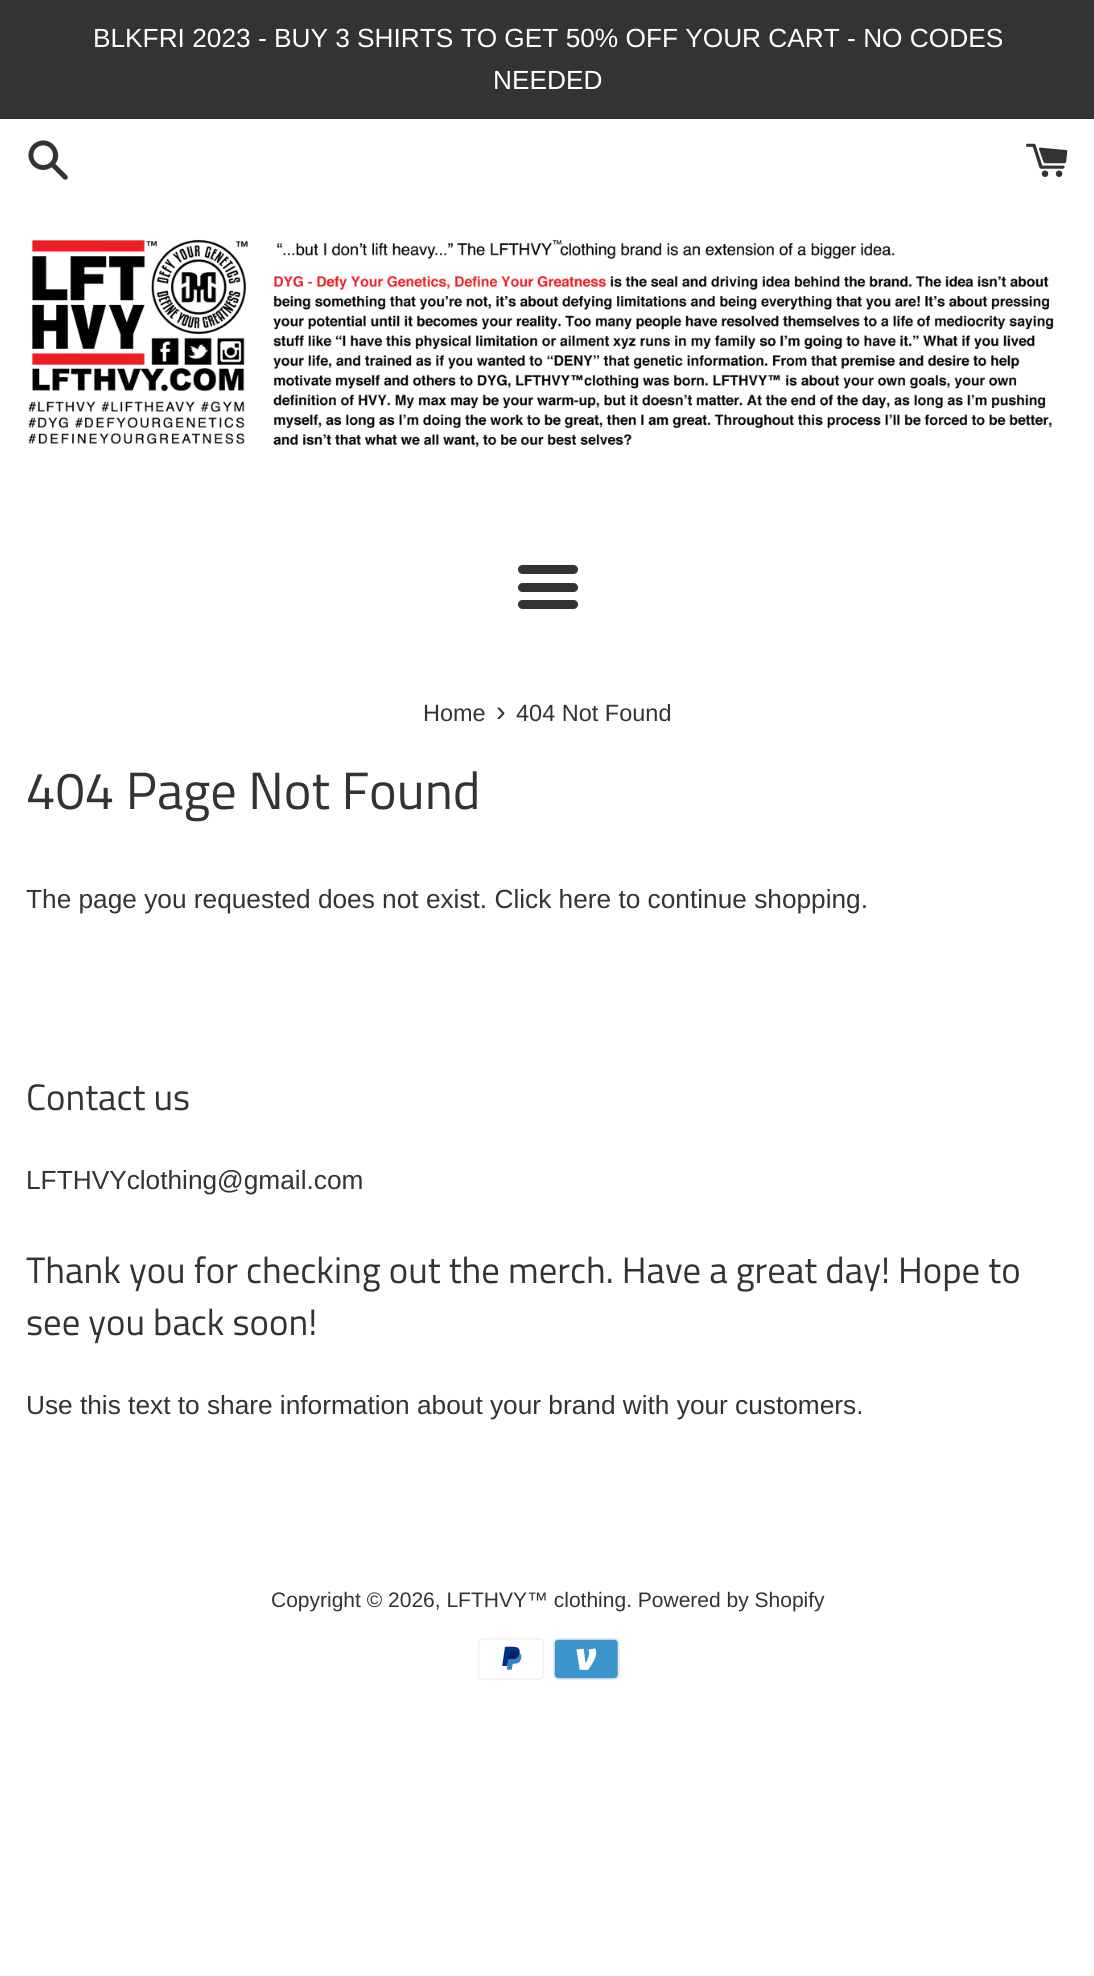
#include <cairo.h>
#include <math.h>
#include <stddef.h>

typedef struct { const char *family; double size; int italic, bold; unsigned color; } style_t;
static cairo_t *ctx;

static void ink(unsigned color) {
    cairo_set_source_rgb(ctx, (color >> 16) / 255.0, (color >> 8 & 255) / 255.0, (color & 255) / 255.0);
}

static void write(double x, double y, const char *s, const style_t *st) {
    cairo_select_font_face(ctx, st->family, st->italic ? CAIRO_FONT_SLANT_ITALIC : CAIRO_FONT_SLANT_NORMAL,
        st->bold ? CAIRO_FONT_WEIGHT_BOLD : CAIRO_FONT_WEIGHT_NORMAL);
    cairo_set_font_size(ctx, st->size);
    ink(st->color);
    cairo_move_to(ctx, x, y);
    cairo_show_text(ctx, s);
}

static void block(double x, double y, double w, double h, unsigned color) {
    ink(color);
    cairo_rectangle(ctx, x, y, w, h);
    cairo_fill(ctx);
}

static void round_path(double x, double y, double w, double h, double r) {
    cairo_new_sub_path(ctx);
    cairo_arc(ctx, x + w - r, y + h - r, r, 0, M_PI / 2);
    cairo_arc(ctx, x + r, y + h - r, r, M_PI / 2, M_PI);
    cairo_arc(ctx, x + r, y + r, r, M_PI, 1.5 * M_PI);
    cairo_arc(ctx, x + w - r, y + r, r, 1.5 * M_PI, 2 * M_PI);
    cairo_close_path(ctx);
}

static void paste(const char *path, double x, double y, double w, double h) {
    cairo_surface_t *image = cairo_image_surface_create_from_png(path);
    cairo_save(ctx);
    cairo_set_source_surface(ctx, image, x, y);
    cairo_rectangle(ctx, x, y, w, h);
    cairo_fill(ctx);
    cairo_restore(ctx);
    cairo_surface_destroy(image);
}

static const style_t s1 = {"Liberation Sans", 26.25, 0, 0, 0xffffff};
static const style_t s2 = {"Liberation Sans", 23.5, 0, 0, 0x333333};
static const style_t s3 = {"Liberation Sans", 29, 0, 0, 0x333333};
static const style_t s4 = {"Titillium Web", 52.5, 0, 0, 0x333333};
static const style_t s5 = {"Liberation Sans", 26.25, 0, 0, 0x333333};
static const style_t s6 = {"Titillium Web", 36.75, 0, 0, 0x333333};
static const style_t s7 = {"Liberation Sans", 21, 0, 0, 0x333333};

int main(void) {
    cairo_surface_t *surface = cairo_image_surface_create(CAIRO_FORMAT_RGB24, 1094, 1976);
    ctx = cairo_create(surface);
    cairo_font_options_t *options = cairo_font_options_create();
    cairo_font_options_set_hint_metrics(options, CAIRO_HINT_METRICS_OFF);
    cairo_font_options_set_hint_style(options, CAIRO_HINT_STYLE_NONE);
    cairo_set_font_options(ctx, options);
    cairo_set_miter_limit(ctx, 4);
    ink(0xffffff);
    cairo_paint(ctx);
    block(0, 0, 1094, 119, 0x333333);
    write(93, 47, "BLKFRI 2023 - BUY 3 SHIRTS TO GET 50% OFF YOUR CART - NO CODES", &s1);
    write(493, 89, "NEEDED", &s1);
    paste("pic1.png", 28, 140, 40, 40);
    paste("pic2.png", 1026, 143, 42, 34);
    paste("pic3.png", 28, 239, 1026, 209);
    ink(0x333333);
    round_path(518, 565, 60, 9, 4.5);
    cairo_fill(ctx);
    round_path(518, 583, 60, 9, 4.5);
    cairo_fill(ctx);
    round_path(518, 600, 60, 9, 4.5);
    cairo_fill(ctx);
    write(423, 721, "Home", &s2);
    write(496, 721, "›", &s3);
    write(516, 721, "404 Not Found", &s2);
    write(26, 809, "404 Page Not Found", &s4);
    write(26, 908, "The page you requested does not exist. Click here to continue shopping.", &s5);
    write(26, 1110, "Contact us", &s6);
    write(26, 1189, "LFTHVYclothing@gmail.com", &s5);
    write(26, 1283, "Thank you for checking out the merch. Have a great day! Hope to", &s6);
    write(26, 1335, "see you back soon!", &s6);
    write(26, 1414, "Use this text to share information about your brand with your customers.", &s5);
    write(271, 1607, "Copyright © 2026, LFTHVY™ clothing. Powered by Shopify", &s7);
    paste("pic4.png", 478, 1638, 66, 42);
    paste("pic5.png", 553, 1638, 67, 42);
    cairo_surface_write_to_png(surface, "screenshot.png");
    cairo_font_options_destroy(options);
    cairo_destroy(ctx);
    cairo_surface_destroy(surface);
    return 0;
}
